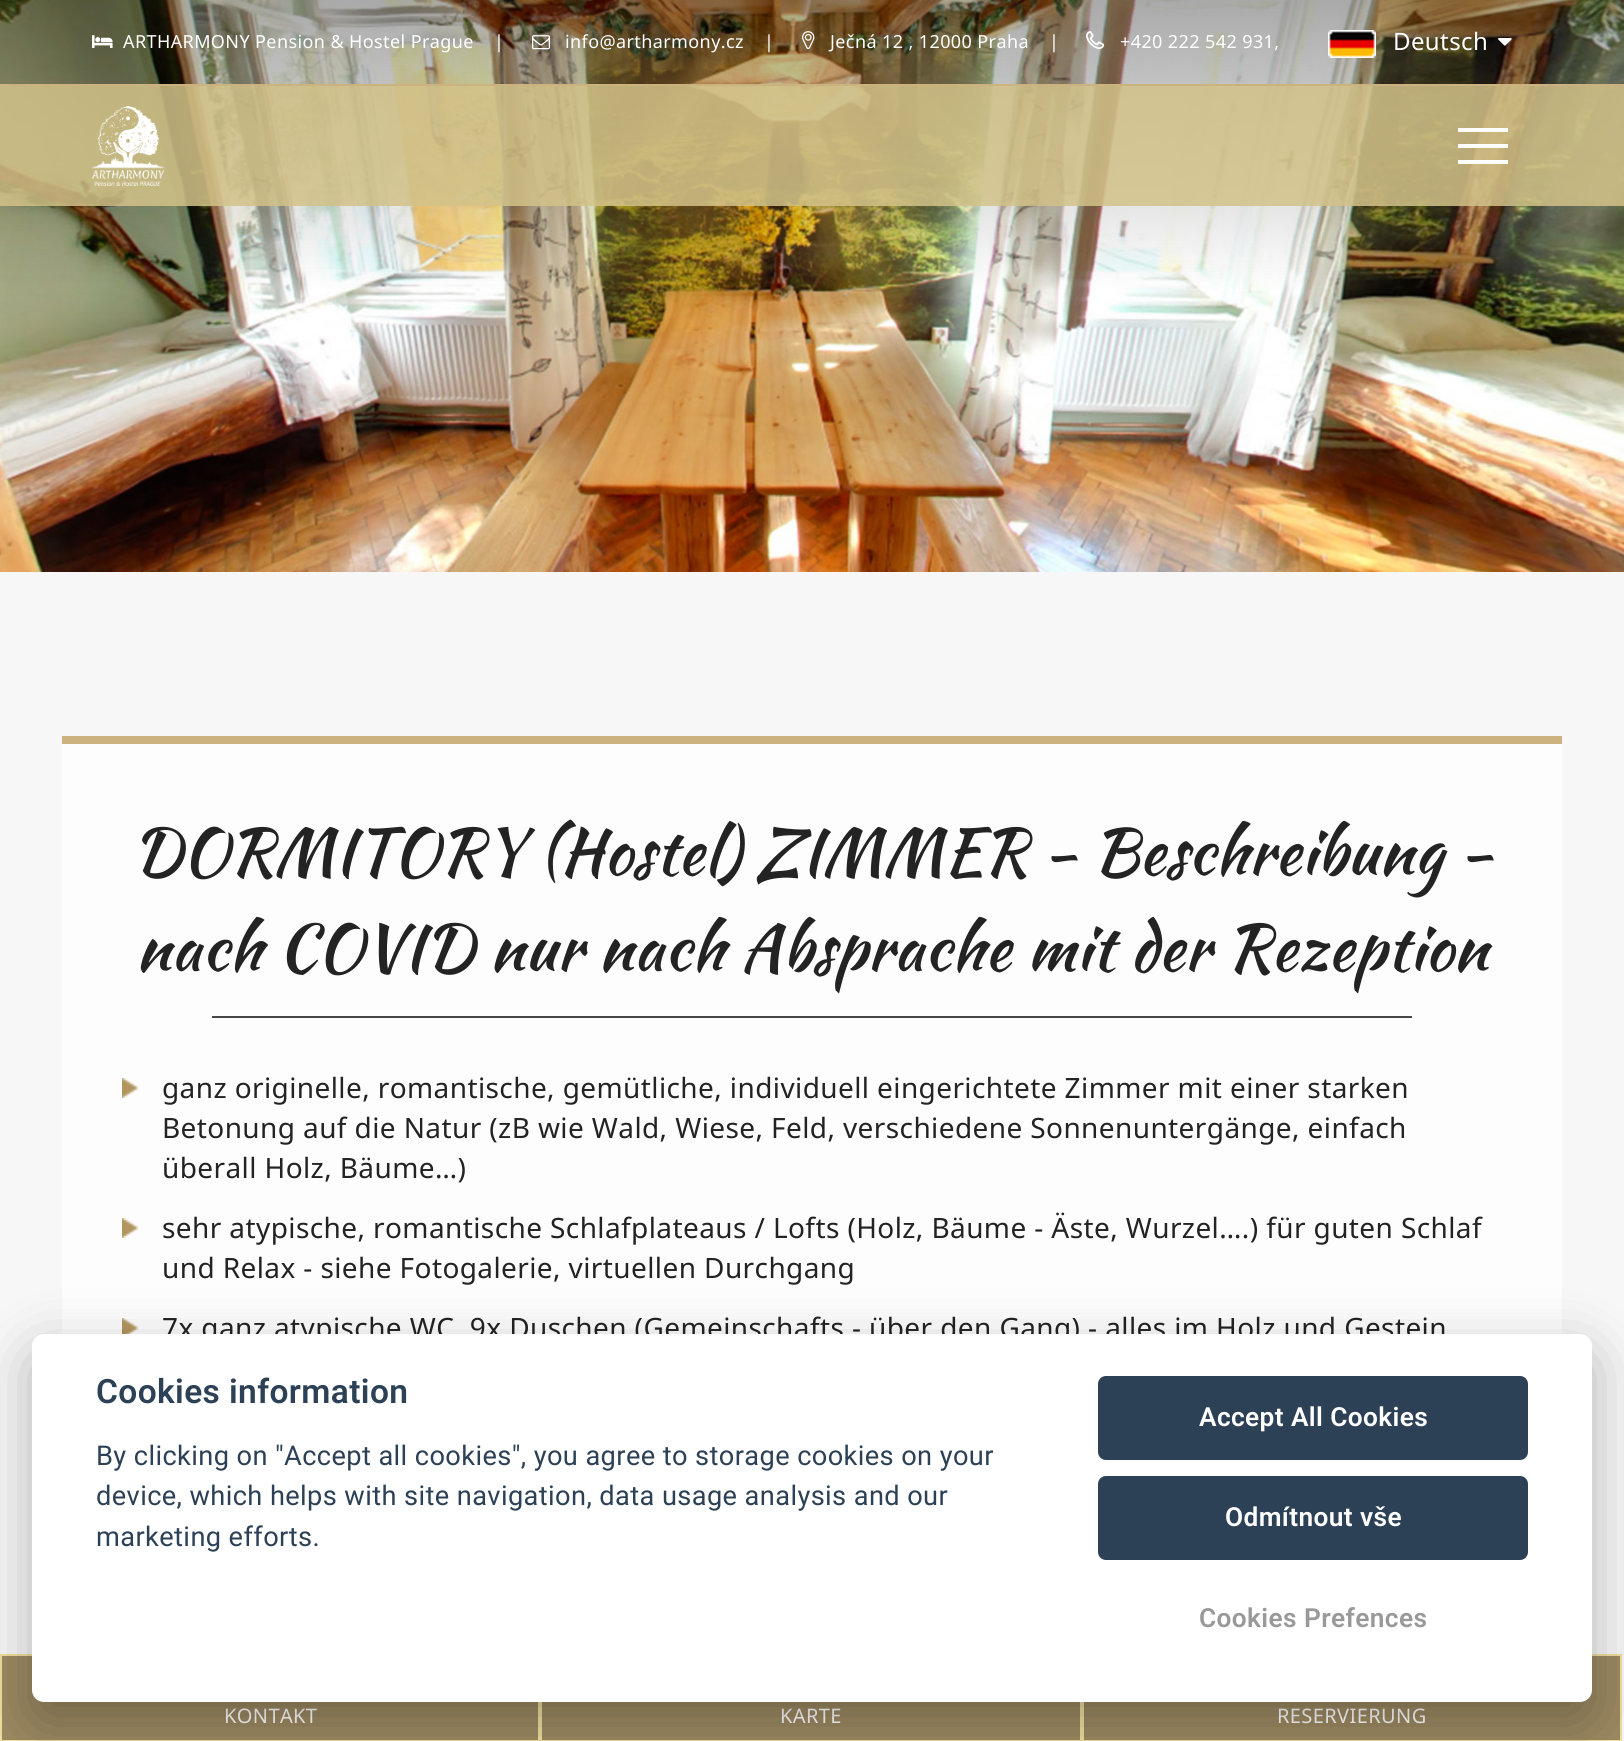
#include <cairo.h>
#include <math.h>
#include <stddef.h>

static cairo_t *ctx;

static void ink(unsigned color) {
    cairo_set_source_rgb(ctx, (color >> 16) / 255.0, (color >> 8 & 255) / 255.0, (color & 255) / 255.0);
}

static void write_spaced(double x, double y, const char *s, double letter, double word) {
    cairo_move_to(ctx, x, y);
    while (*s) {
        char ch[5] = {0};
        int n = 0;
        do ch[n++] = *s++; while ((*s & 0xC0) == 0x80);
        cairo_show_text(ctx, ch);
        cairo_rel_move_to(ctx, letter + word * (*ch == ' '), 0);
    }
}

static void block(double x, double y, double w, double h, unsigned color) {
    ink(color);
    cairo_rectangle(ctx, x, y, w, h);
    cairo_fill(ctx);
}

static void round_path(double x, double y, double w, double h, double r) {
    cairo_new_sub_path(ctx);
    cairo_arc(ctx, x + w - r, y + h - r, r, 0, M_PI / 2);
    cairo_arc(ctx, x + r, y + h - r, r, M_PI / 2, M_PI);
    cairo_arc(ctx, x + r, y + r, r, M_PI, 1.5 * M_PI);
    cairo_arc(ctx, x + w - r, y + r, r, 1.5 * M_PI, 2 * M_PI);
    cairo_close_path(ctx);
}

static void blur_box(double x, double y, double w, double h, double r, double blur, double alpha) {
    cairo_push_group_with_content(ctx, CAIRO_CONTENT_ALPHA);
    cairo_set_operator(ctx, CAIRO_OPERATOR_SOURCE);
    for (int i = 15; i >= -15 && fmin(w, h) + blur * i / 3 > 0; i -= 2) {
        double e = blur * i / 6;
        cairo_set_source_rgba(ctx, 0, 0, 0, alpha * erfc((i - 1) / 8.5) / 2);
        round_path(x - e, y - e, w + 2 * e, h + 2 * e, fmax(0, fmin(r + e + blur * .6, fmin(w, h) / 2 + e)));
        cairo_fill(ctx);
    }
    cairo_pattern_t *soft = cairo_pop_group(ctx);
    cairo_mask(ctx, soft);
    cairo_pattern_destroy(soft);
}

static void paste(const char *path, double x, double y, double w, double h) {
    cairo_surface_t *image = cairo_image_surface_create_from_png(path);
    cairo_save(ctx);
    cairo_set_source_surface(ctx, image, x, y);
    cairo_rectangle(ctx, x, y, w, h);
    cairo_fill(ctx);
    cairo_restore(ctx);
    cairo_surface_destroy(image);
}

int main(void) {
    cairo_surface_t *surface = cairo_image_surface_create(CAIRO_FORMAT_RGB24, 1624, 1741);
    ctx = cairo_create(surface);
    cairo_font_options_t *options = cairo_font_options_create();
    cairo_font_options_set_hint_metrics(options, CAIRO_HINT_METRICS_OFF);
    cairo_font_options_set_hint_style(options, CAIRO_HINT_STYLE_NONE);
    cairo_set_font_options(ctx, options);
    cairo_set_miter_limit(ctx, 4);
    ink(0xf7f7f7);
    cairo_paint(ctx);
    paste("pic1.png", 0, 0, 1624, 572);
    block(0, 84, 1624, 2, 0xcbb27f);
    paste("pic2.png", 92, 35, 21, 13);
    cairo_select_font_face(ctx, "Noto Sans", CAIRO_FONT_SLANT_NORMAL, CAIRO_FONT_WEIGHT_NORMAL);
    cairo_set_font_size(ctx, 18);
    ink(0xffffff);
    write_spaced(123, 48, "ARTHARMONY Pension & Hostel Prague", 0.4, 0);
    write_spaced(494, 48, "|", 0.4, 0);
    paste("pic3.png", 532, 35, 18, 15);
    write_spaced(565, 48, "info@artharmony.cz", 0.4, 0);
    write_spaced(764, 48, "|", 0.4, 0);
    paste("pic4.png", 802, 31, 13, 19);
    write_spaced(830, 48, "Ječná 12 , 12000 Praha", 0.4, 0);
    write_spaced(1049, 48, "|", 0.4, 0);
    paste("pic5.png", 1086, 31, 19, 19);
    write_spaced(1120, 48, "+420 222 542 931,", 0.4, 0);
    paste("pic6.png", 1328, 30, 48, 28);
    cairo_set_font_size(ctx, 24);
    write_spaced(1393, 50, "Deutsch", 0.4, 0);
    paste("pic7.png", 1498, 38, 14, 8);
    cairo_set_source_rgba(ctx, 0.824, 0.761, 0.537, 0.85);
    cairo_rectangle(ctx, 0, 86, 1624, 120);
    cairo_fill(ctx);
    paste("pic8.png", 92, 106, 72, 80);
    block(1458, 144, 50, 4, 0xffffff);
    block(1458, 128, 50, 4, 0xffffff);
    block(1458, 160, 50, 4, 0xffffff);
    block(62, 744, 1500, 590, 0xfdfdfd);
    block(62, 736, 1500, 8, 0xcbb27f);
    cairo_select_font_face(ctx, "Kaushan Script", CAIRO_FONT_SLANT_NORMAL, CAIRO_FONT_WEIGHT_NORMAL);
    cairo_set_font_size(ctx, 64);
    ink(0x232323);
    write_spaced(132, 874, "DORMITORY (Hostel) ZIMMER - Beschreibung -", 0.4, 0);
    write_spaced(136, 970, "nach COVID nur nach Absprache mit der Rezeption", 0.4, 0);
    block(212, 1016, 1200, 2, 0x474747);
    paste("pic9.png", 122, 1078, 16, 20);
    cairo_select_font_face(ctx, "Noto Sans", CAIRO_FONT_SLANT_NORMAL, CAIRO_FONT_WEIGHT_NORMAL);
    cairo_set_font_size(ctx, 28);
    ink(0x232323);
    write_spaced(162, 1098, "ganz originelle, romantische, gemütliche, individuell eingerichtete Zimmer mit einer starken", 0.4, 0);
    write_spaced(162, 1138, "Betonung auf die Natur (zB wie Wald, Wiese, Feld, verschiedene Sonnenuntergänge, einfach", 0.4, 0);
    write_spaced(162, 1178, "überall Holz, Bäume…)", 0.4, 0);
    paste("pic9.png", 122, 1218, 16, 20);
    write_spaced(162, 1238, "sehr atypische, romantische Schlafplateaus / Lofts (Holz, Bäume - Äste, Wurzel….) für guten Schlaf", 0.4, 0);
    write_spaced(162, 1278, "und Relax - siehe Fotogalerie, virtuellen Durchgang", 0.4, 0);
    paste("pic10.png", 122, 1318, 16, 16);
    write_spaced(162, 1338, "7x ganz atypische WC, 9x Duschen (Gemeinschafts - über den Gang) - alles im Holz und Gestein", 0.4, 0);
    ink(0x9d8a62);
    cairo_rectangle(ctx, 1, 1655, 538, 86);
    cairo_fill_preserve(ctx);
    ink(0xefe09e);
    cairo_stroke(ctx);
    cairo_set_font_size(ctx, 20);
    ink(0xffffff);
    write_spaced(224, 1723, "KONTAKT", 0.4, 0);
    block(542, 1702, 538, 38, 0x9d8a62);
    cairo_rectangle(ctx, 541, 1655, 540, 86);
    ink(0xefe09e);
    cairo_stroke(ctx);
    ink(0xffffff);
    write_spaced(780, 1723, "KARTE", 0.4, 0);
    ink(0x9d8a62);
    cairo_rectangle(ctx, 1083, 1655, 538, 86);
    cairo_fill_preserve(ctx);
    ink(0xefe09e);
    cairo_stroke(ctx);
    ink(0xffffff);
    write_spaced(1277, 1723, "RESERVIERUNG", 0.4, 0);
    ink(0x020203);
    blur_box(32, 1354, 1560, 368, 12, 30, 0.28);
    ink(0xffffff);
    round_path(32, 1334, 1560, 368, 12);
    cairo_fill(ctx);
    cairo_select_font_face(ctx, "Roboto SemiBold", CAIRO_FONT_SLANT_NORMAL, CAIRO_FONT_WEIGHT_NORMAL);
    cairo_set_font_size(ctx, 33.5);
    ink(0x2d4156);
    write_spaced(96, 1403, "Cookies information", 0.4, 0);
    cairo_select_font_face(ctx, "Roboto", CAIRO_FONT_SLANT_NORMAL, CAIRO_FONT_WEIGHT_NORMAL);
    cairo_set_font_size(ctx, 27.2);
    write_spaced(96, 1465, "By clicking on \"Accept all cookies\", you agree to storage cookies on your", 0.4, 0);
    write_spaced(96, 1505, "device, which helps with site navigation, data usage analysis and our", 0.4, 0);
    write_spaced(96, 1546, "marketing efforts.", 0.4, 0);
    round_path(1098, 1376, 430, 84, 8);
    cairo_fill(ctx);
    cairo_select_font_face(ctx, "Roboto SemiBold", CAIRO_FONT_SLANT_NORMAL, CAIRO_FONT_WEIGHT_NORMAL);
    cairo_set_font_size(ctx, 26.25);
    ink(0xffffff);
    write_spaced(1199, 1426, "Accept All Cookies", 0.4, 0);
    ink(0x2d4156);
    round_path(1098, 1476, 430, 84, 8);
    cairo_fill(ctx);
    ink(0xffffff);
    write_spaced(1225, 1526, "Odmítnout vše", 0.4, 0);
    ink(0x999999);
    write_spaced(1199, 1627, "Cookies Prefences", 0.4, 0);
    cairo_surface_write_to_png(surface, "screenshot.png");
    cairo_font_options_destroy(options);
    cairo_destroy(ctx);
    cairo_surface_destroy(surface);
    return 0;
}
